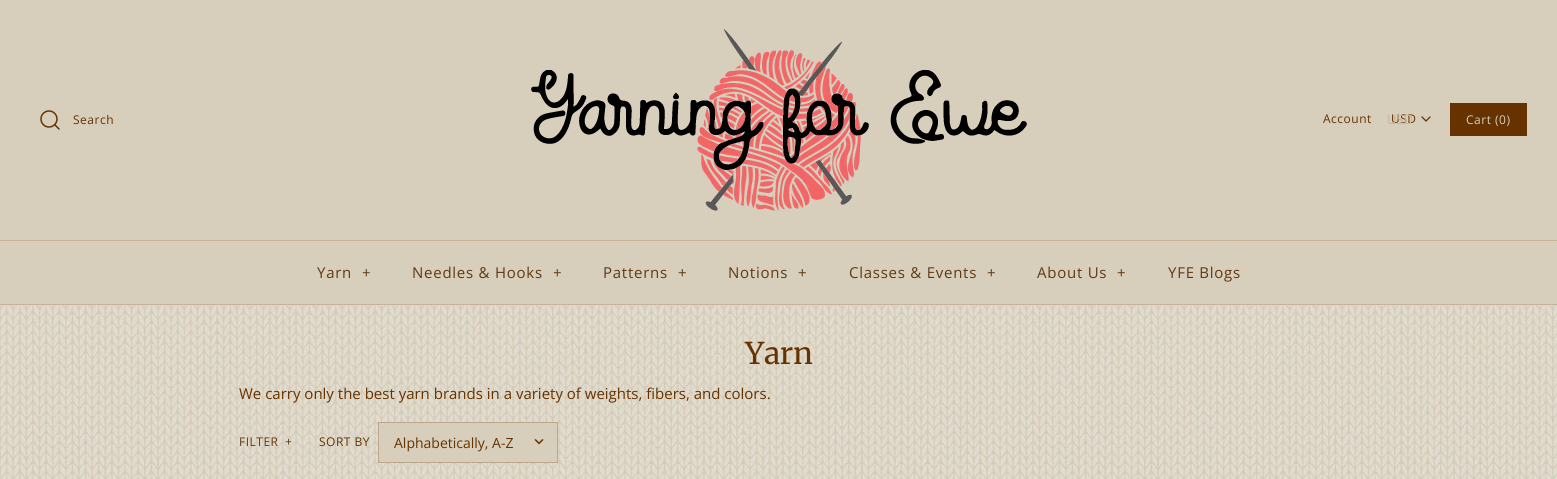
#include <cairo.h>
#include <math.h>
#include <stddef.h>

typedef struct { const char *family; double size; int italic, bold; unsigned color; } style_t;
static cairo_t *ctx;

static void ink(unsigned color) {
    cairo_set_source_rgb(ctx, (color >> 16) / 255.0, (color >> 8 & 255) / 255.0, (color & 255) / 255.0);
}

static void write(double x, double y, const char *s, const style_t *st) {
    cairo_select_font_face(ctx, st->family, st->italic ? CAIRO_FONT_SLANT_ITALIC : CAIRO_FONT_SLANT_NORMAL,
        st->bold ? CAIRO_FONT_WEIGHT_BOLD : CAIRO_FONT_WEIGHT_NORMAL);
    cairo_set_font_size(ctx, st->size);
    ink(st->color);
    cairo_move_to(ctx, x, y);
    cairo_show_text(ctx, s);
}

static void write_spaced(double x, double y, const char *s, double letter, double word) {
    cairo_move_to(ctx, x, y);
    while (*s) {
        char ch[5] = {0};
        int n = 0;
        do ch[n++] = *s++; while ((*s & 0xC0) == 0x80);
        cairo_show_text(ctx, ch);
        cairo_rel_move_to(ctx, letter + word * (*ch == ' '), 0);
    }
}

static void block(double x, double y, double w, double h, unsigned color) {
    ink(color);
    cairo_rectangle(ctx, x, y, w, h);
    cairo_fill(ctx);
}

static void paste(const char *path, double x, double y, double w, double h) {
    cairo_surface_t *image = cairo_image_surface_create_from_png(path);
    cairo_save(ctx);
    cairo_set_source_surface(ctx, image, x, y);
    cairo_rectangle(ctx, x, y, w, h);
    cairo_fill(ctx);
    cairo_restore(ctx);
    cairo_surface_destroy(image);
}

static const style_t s1 = {"Open Sans", 13, 0, 0, 0xc4b49c};
static const style_t s2 = {"Merriweather", 30, 0, 0, 0x663300};
static const style_t s3 = {"Open Sans", 15, 0, 0, 0x663300};
static const style_t s4 = {"Open Sans", 14, 0, 0, 0x663300};

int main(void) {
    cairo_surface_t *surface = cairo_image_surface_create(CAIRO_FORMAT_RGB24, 1557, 479);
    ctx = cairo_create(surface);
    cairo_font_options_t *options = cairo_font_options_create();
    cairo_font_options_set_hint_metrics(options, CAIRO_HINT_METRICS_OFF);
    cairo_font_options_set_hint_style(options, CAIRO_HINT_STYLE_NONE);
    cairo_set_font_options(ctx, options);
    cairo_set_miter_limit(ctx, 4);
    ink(0xffffff);
    cairo_paint(ctx);
    paste("pic1.png", 0, 305, 1557, 174);
    block(0, 0, 1557, 240, 0xd7cebb);
    paste("pic2.png", 531, 29, 496, 182);
    cairo_arc(ctx, 49, 119, 8, 0, 2 * M_PI);
    ink(0x663300);
    cairo_set_line_width(ctx, 1.5);
    cairo_stroke(ctx);
    cairo_new_path(ctx);
    cairo_move_to(ctx, 59, 129);
    cairo_line_to(ctx, 54.5, 124.5);
    cairo_set_line_cap(ctx, CAIRO_LINE_CAP_ROUND);
    cairo_set_line_join(ctx, CAIRO_LINE_JOIN_ROUND);
    cairo_stroke(ctx);
    cairo_select_font_face(ctx, "Open Sans", CAIRO_FONT_SLANT_NORMAL, CAIRO_FONT_WEIGHT_NORMAL);
    cairo_set_font_size(ctx, 12);
    write_spaced(73, 124, "Search", 0.5, 0);
    write_spaced(1323, 123, "Account", 0.5, 0);
    write_spaced(1391, 123, "USD", 0.5, 0);
    write(1387, 124, "USD", &s1);
    cairo_new_path(ctx);
    cairo_move_to(ctx, 1422, 117);
    cairo_line_to(ctx, 1426, 121);
    cairo_line_to(ctx, 1430, 117);
    ink(0x663300);
    cairo_set_line_width(ctx, 1.3);
    cairo_stroke(ctx);
    block(1450, 103, 77, 33, 0x663300);
    cairo_set_font_size(ctx, 12);
    ink(0xd7cebb);
    write_spaced(1466, 124, "Cart (0)", 0.5, 0);
    block(0, 304, 1557, 1, 0xc7b299);
    block(0, 241, 1557, 63, 0xd7cebb);
    block(0, 240, 1557, 1, 0xc7b299);
    cairo_set_font_size(ctx, 15);
    ink(0x603913);
    write_spaced(317, 278, "Yarn", 0.75, 0);
    write_spaced(362, 278, "+", 0.75, 0);
    write_spaced(412, 278, "Needles & Hooks", 0.75, 0);
    write_spaced(553, 278, "+", 0.75, 0);
    write_spaced(603, 278, "Patterns", 0.75, 0);
    write_spaced(678, 278, "+", 0.75, 0);
    write_spaced(728, 278, "Notions", 0.75, 0);
    write_spaced(798, 278, "+", 0.75, 0);
    write_spaced(849, 278, "Classes & Events", 0.75, 0);
    write_spaced(987, 278, "+", 0.75, 0);
    write_spaced(1037, 278, "About Us", 0.75, 0);
    write_spaced(1117, 278, "+", 0.75, 0);
    write_spaced(1168, 278, "YFE Blogs", 0.75, 0);
    write(745, 364, "Yarn", &s2);
    write(239, 399, "We carry only the best yarn brands in a variety of weights, fibers, and colors.", &s3);
    cairo_set_font_size(ctx, 12);
    ink(0x603913);
    write_spaced(239, 446, "FILTER", 0.5, 0);
    write_spaced(285, 446, "+", 0.5, 0);
    ink(0x663300);
    write_spaced(319, 446, "SORT BY", 0.5, 0);
    ink(0xd7cebb);
    cairo_rectangle(ctx, 378.5, 422.5, 179, 40);
    cairo_fill_preserve(ctx);
    ink(0xbaa78c);
    cairo_set_line_width(ctx, 1);
    cairo_set_line_cap(ctx, CAIRO_LINE_CAP_BUTT);
    cairo_set_line_join(ctx, CAIRO_LINE_JOIN_MITER);
    cairo_stroke(ctx);
    write(394, 448, "Alphabetically, A-Z", &s4);
    paste("pic3.png", 534, 439, 10, 6);
    cairo_surface_write_to_png(surface, "screenshot.png");
    cairo_font_options_destroy(options);
    cairo_destroy(ctx);
    cairo_surface_destroy(surface);
    return 0;
}
